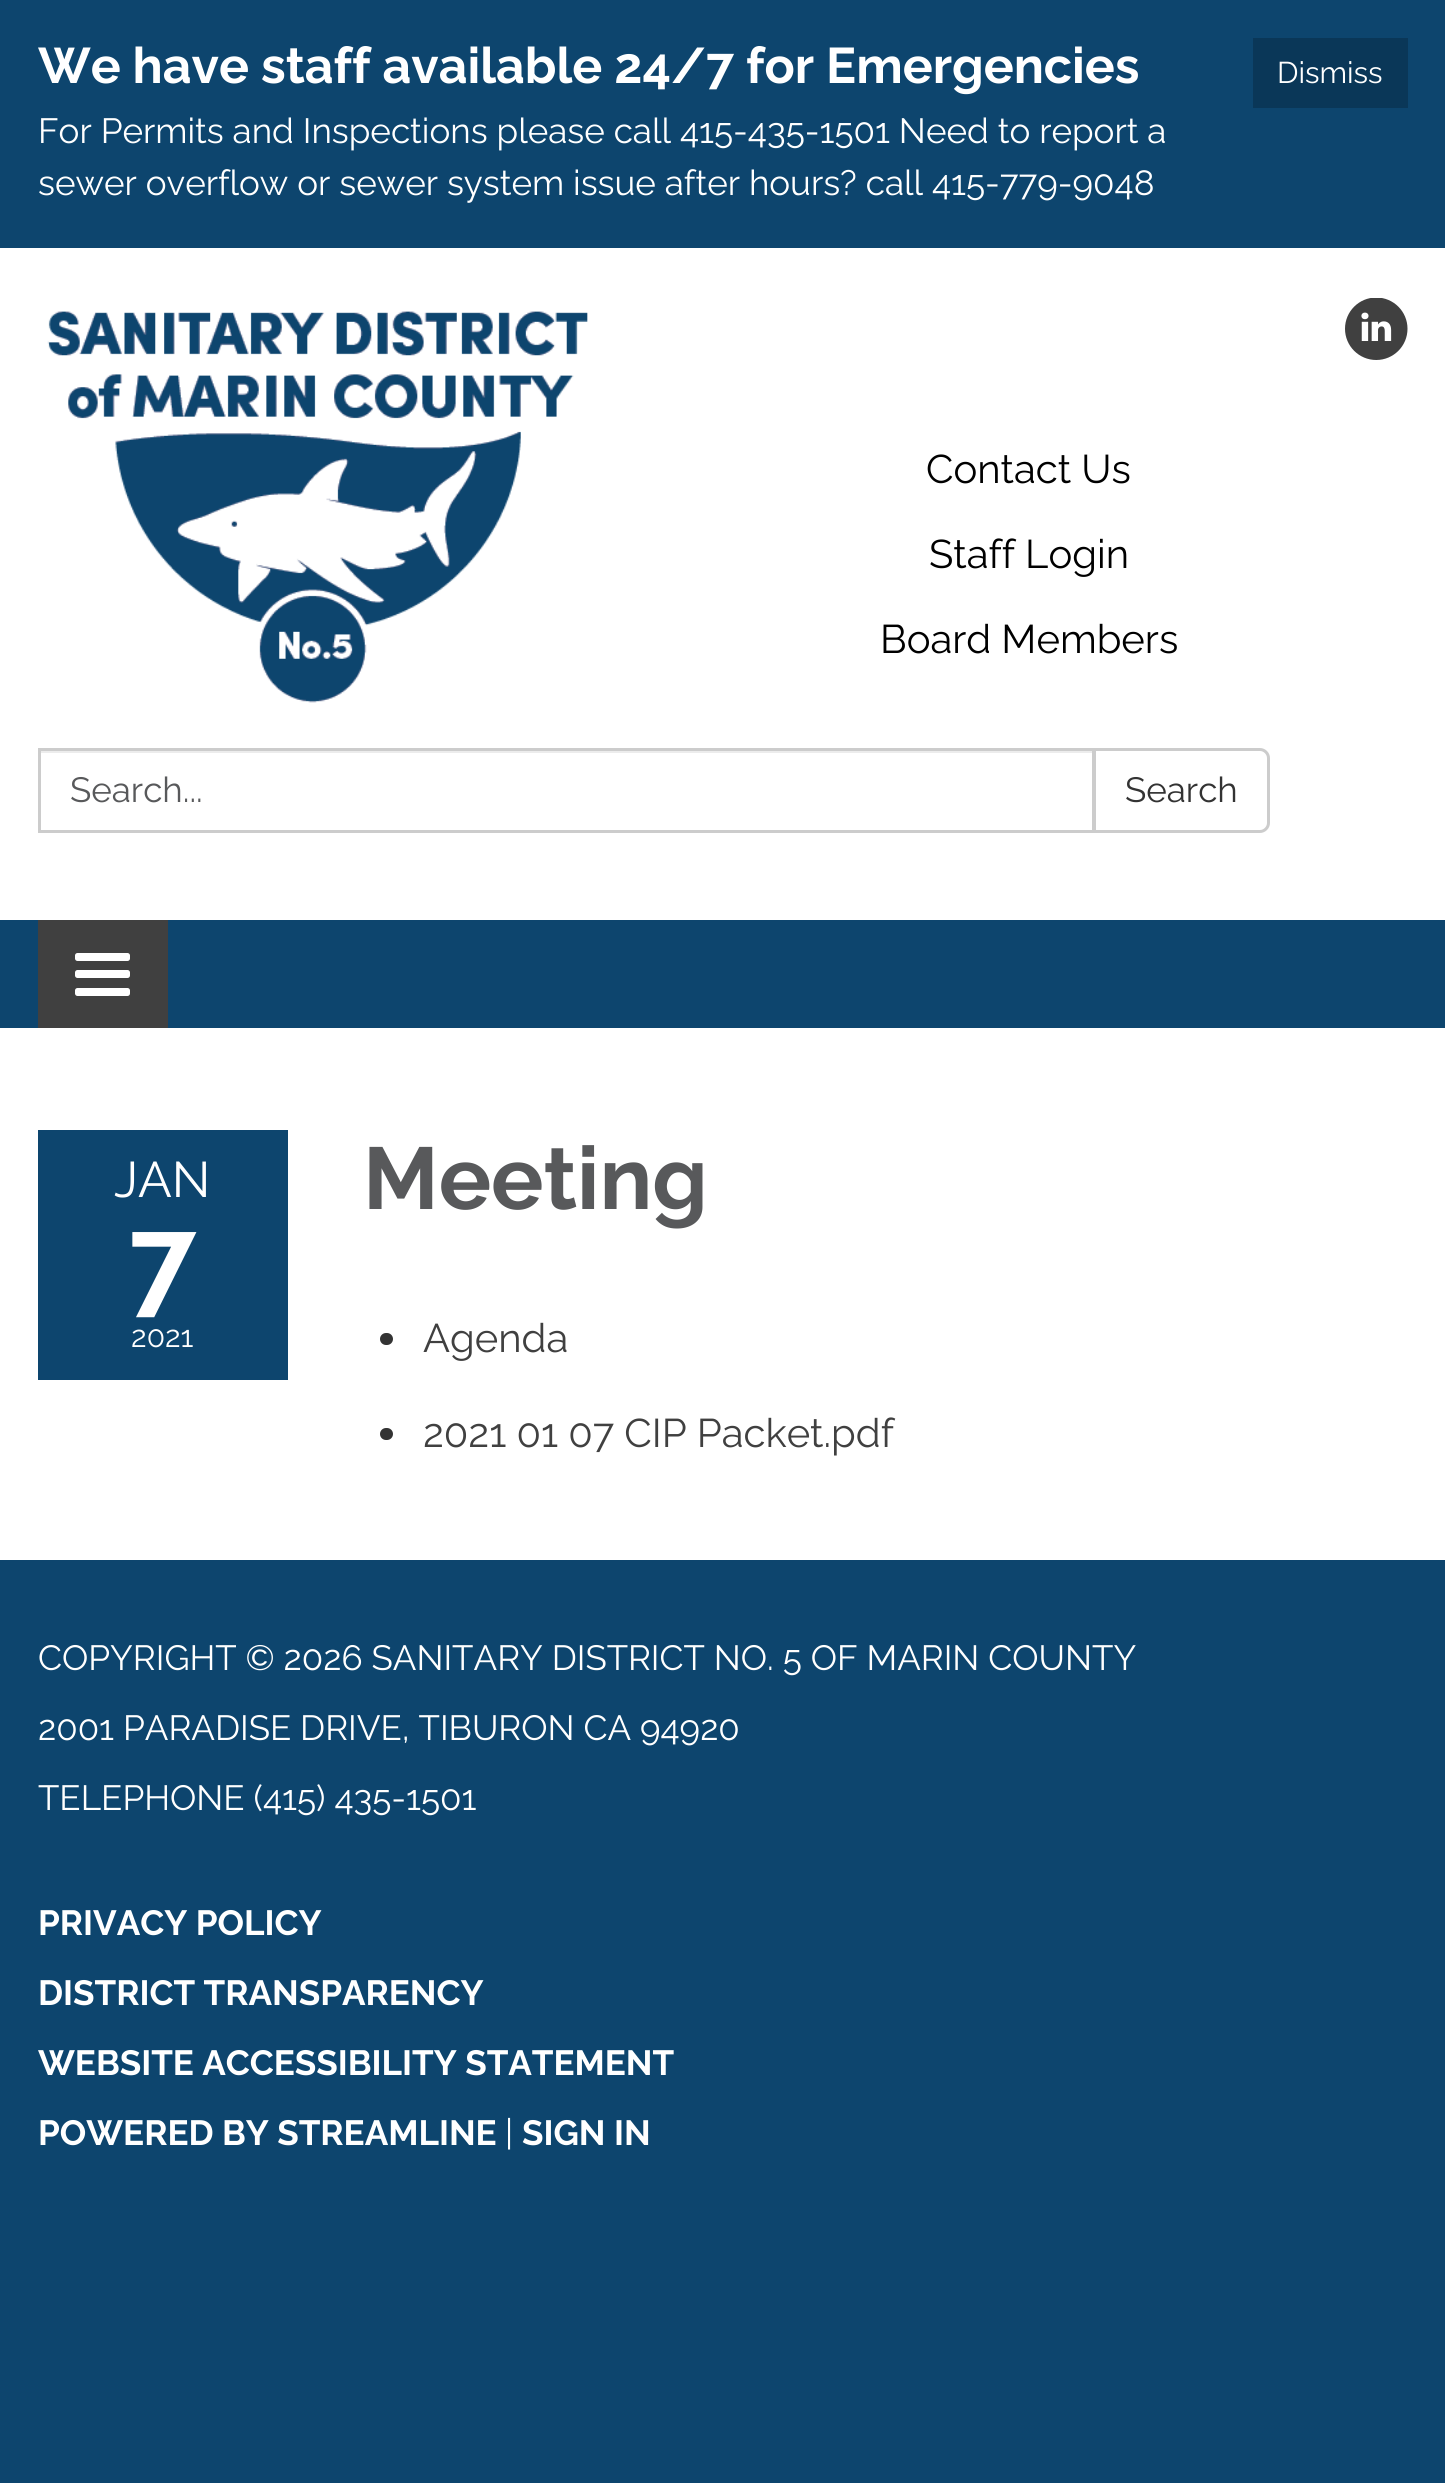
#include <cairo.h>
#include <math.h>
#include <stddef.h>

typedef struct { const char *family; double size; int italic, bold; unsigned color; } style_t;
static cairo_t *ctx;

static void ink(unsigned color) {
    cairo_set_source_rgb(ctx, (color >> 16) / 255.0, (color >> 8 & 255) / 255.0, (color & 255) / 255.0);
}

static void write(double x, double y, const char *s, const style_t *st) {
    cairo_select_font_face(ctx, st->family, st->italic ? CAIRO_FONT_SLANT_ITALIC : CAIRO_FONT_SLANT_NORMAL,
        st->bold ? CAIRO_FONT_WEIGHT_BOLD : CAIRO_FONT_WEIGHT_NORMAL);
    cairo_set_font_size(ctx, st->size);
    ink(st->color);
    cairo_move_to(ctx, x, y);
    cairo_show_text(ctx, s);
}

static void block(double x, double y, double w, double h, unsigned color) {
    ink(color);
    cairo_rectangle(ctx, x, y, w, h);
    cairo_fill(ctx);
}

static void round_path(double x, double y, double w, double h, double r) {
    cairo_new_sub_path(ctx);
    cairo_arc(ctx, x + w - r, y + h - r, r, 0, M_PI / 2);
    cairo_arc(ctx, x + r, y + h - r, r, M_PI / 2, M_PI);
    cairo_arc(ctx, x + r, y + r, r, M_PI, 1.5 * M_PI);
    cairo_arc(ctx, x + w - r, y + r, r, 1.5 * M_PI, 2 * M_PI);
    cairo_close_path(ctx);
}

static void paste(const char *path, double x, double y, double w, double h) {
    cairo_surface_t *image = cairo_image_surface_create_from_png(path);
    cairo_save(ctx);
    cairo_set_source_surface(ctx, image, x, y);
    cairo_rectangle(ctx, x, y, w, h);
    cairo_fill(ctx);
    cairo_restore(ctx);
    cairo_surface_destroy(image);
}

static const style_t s1 = {"Raleway", 50, 0, 1, 0xffffff};
static const style_t s2 = {"Raleway", 30, 0, 0, 0xffffff};
static const style_t s3 = {"Raleway", 35, 0, 0, 0xffffff};
static const style_t s4 = {"Raleway", 40, 0, 0, 0x000000};
static const style_t s5 = {"Raleway", 35, 0, 0, 0x58595b};
static const style_t s6 = {"Raleway", 35, 0, 0, 0x333333};
static const style_t s7 = {"Raleway", 50, 0, 0, 0xffffff};
static const style_t s8 = {"Raleway", 120, 0, 1, 0xffffff};
static const style_t s9 = {"Raleway", 87.5, 0, 1, 0x58595b};
static const style_t s10 = {"Raleway", 40, 0, 0, 0x404040};
static const style_t s11 = {"Raleway", 35, 0, 1, 0xffffff};

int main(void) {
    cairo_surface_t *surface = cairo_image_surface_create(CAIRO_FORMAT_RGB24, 1445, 2483);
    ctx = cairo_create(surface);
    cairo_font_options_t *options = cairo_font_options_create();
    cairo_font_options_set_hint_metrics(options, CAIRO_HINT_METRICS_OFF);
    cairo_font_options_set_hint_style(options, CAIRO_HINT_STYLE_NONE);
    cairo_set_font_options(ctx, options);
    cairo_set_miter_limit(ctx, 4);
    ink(0x0d456e);
    cairo_paint(ctx);
    write(38, 83, "We have staff available 24/7 for Emergencies", &s1);
    block(1253, 38, 155, 70, 0x0a3758);
    write(1277, 83, "Dismiss", &s2);
    write(38, 143, "For Permits and Inspections please call 415-435-1501 Need to report a", &s3);
    write(38, 195, "sewer overflow or sewer system issue after hours? call 415-779-9048", &s3);
    block(0, 248, 1445, 672, 0xffffff);
    paste("pic1.png", 47, 311, 541, 392);
    write(926, 483, "Contact Us", &s4);
    write(929, 568, "Staff Login", &s4);
    write(880, 653, "Board Members", &s4);
    paste("pic2.png", 1345, 298, 63, 62);
    block(40, 751, 1053, 2, 0xececec);
    cairo_rectangle(ctx, 39.5, 749.5, 1054, 82);
    ink(0xcccccc);
    cairo_set_line_width(ctx, 3);
    cairo_stroke(ctx);
    write(70, 802, "Search...", &s5);
    ink(0xffffff);
    cairo_new_path(ctx);
    cairo_move_to(ctx, 1094.5, 749.5);
    cairo_line_to(ctx, 1260, 749.5);
    cairo_curve_to(ctx, 1264.5, 749.5, 1268.5, 753.5, 1268.5, 758);
    cairo_line_to(ctx, 1268.5, 823);
    cairo_curve_to(ctx, 1268.5, 827.5, 1264.5, 831.5, 1260, 831.5);
    cairo_line_to(ctx, 1094.5, 831.5);
    cairo_close_path(ctx);
    cairo_fill_preserve(ctx);
    ink(0xcccccc);
    cairo_stroke(ctx);
    write(1125, 802, "Search", &s6);
    block(38, 920, 130, 108, 0x404040);
    ink(0xffffff);
    round_path(75, 953, 55, 8, 2.5);
    cairo_fill(ctx);
    round_path(75, 970, 55, 8, 2.5);
    cairo_fill(ctx);
    round_path(75, 988, 55, 8, 2.5);
    cairo_fill(ctx);
    block(0, 1028, 1445, 532, 0xffffff);
    block(38, 1130, 250, 250, 0x0d456e);
    write(114, 1197, "JAN", &s7);
    write(129, 1302, "7", &s8);
    write(131, 1347, "2021", &s2);
    write(363, 1209, "Meeting", &s9);
    ink(0x333333);
    round_path(380, 1333, 13, 12, 6);
    cairo_fill(ctx);
    write(423, 1352, "Agenda", &s10);
    ink(0x333333);
    round_path(380, 1428, 13, 12, 6);
    cairo_fill(ctx);
    write(423, 1447, "2021 01 07 CIP Packet.pdf", &s10);
    write(38, 1670, "COPYRIGHT © 2026 SANITARY DISTRICT NO. 5 OF MARIN COUNTY", &s3);
    write(38, 1740, "2001 PARADISE DRIVE, TIBURON CA 94920", &s3);
    write(38, 1810, "TELEPHONE (415) 435-1501", &s3);
    write(38, 1935, "PRIVACY POLICY", &s11);
    write(38, 2005, "DISTRICT TRANSPARENCY", &s11);
    write(38, 2075, "WEBSITE ACCESSIBILITY STATEMENT", &s11);
    write(38, 2145, "POWERED BY STREAMLINE", &s11);
    write(505, 2145, "|", &s3);
    write(522, 2145, "SIGN IN", &s11);
    cairo_surface_write_to_png(surface, "screenshot.png");
    cairo_font_options_destroy(options);
    cairo_destroy(ctx);
    cairo_surface_destroy(surface);
    return 0;
}
